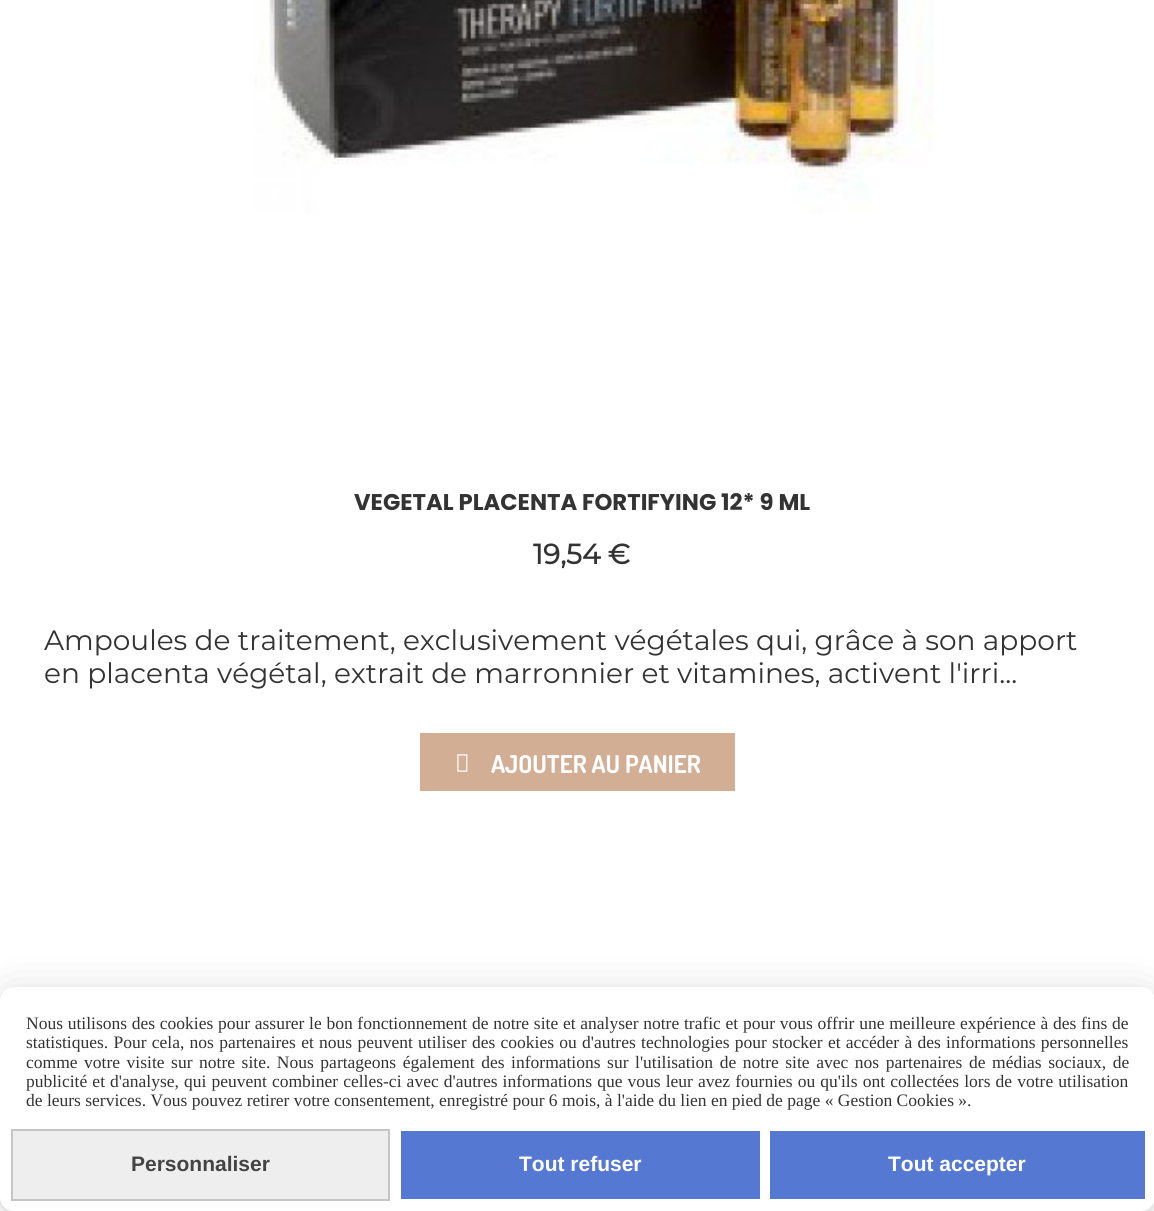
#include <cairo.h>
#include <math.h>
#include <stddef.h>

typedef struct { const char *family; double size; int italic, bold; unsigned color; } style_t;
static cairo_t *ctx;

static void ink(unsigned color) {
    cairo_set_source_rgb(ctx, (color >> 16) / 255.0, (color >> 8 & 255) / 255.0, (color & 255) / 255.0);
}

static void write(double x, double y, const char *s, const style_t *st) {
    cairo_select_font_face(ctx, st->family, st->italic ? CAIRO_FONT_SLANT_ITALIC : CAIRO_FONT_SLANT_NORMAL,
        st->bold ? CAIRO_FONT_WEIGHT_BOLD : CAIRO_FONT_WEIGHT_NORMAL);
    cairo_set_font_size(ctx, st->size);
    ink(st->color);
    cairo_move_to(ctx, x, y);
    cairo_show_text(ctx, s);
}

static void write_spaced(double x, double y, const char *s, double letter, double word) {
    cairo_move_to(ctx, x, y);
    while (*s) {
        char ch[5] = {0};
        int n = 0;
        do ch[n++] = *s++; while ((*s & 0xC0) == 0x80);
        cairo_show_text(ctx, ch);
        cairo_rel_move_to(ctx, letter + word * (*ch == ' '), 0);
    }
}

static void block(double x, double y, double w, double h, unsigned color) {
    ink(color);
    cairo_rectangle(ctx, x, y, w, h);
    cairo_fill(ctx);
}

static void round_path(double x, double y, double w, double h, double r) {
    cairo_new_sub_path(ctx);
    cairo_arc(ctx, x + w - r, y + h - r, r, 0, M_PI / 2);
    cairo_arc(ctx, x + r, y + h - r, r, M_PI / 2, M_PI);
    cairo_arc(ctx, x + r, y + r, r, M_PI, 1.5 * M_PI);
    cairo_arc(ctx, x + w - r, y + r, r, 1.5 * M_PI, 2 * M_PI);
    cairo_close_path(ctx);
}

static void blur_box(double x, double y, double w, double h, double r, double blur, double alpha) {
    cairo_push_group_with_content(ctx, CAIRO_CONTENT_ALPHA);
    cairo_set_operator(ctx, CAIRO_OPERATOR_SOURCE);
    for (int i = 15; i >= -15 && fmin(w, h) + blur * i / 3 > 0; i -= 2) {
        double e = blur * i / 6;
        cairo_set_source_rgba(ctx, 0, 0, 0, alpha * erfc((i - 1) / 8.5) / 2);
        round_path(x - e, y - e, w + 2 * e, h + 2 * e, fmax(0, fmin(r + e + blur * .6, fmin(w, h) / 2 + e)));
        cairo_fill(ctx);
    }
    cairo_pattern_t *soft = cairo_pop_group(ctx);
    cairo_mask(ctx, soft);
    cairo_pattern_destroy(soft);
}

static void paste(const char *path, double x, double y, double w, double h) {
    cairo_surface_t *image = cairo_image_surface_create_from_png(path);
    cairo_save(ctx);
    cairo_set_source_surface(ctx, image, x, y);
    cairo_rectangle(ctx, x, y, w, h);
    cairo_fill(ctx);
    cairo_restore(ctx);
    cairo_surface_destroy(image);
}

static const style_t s1 = {"Poppins", 22.75, 0, 1, 0x333333};
static const style_t s2 = {"Montserrat", 28, 0, 1, 0x333333};
static const style_t s3 = {"Montserrat Thin", 28, 0, 0, 0x333333};
static const style_t s4 = {"Dosis", 24.5, 0, 1, 0xffffff};
static const style_t s5 = {"Liberation Serif", 17.5, 0, 0, 0x333333};
static const style_t s6 = {"Liberation Sans", 21, 0, 1, 0x444444};
static const style_t s7 = {"Liberation Sans", 21, 0, 1, 0xffffff};

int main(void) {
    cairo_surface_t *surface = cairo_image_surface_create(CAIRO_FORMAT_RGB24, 1154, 1211);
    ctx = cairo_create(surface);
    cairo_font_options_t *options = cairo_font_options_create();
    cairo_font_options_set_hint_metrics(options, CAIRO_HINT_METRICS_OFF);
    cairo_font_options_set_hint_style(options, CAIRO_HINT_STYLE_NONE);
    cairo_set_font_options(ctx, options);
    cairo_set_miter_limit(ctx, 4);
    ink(0xffffff);
    cairo_paint(ctx);
    paste("pic1.png", 254, 0, 681, 214);
    write(354, 510, "VEGETAL PLACENTA FORTIFYING 12* 9 ML", &s1);
    write(533, 564, "19,54 €", &s2);
    write(44, 650, "Ampoules de traitement, exclusivement végétales qui, grâce à son apport", &s3);
    write(44, 683, "en placenta végétal, extrait de marronnier et vitamines, activent l'irri...", &s3);
    block(420, 733, 315, 58, 0xd2ae94);
    paste("pic2.png", 457, 754, 11, 18);
    write(491, 773, "AJOUTER AU PANIER", &s4);
    ink(0x000000);
    blur_box(0, 991, 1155, 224, 14, 5, 0.05);
    blur_box(0, 994, 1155, 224, 14, 21, 0.15);
    ink(0xffffff);
    round_path(0, 987, 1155, 224, 14);
    cairo_fill(ctx);
    cairo_select_font_face(ctx, "Liberation Serif", CAIRO_FONT_SLANT_NORMAL, CAIRO_FONT_WEIGHT_NORMAL);
    cairo_set_font_size(ctx, 17.5);
    ink(0x333333);
    write_spaced(26, 1029, "Nous utilisons des cookies pour assurer le bon fonctionnement de notre site et analyser notre trafic et pour vous offrir une meilleure expérience à des fins de", 0, 0.35);
    write_spaced(26, 1048, "statistiques. Pour cela, nos partenaires et nous peuvent utiliser des cookies ou d'autres technologies pour stocker et accéder à des informations personnelles", 0, 0.9);
    write_spaced(26, 1068, "comme votre visite sur notre site. Nous partageons également des informations sur l'utilisation de notre site avec nos partenaires de médias sociaux, de", 0, 2.2);
    write_spaced(26, 1087, "publicité et d'analyse, qui peuvent combiner celles-ci avec d'autres informations que vous leur avez fournies ou qu'ils ont collectées lors de votre utilisation", 0, 0.75);
    write(26, 1106, "de leurs services. Vous pouvez retirer votre consentement, enregistré pour 6 mois, à l'aide du lien en pied de page « Gestion Cookies ».", &s5);
    ink(0xeeeeee);
    cairo_rectangle(ctx, 12, 1130, 377, 70);
    cairo_fill_preserve(ctx);
    ink(0xc5c5c5);
    cairo_stroke(ctx);
    write(131, 1171, "Personnaliser", &s6);
    block(401, 1131, 359, 68, 0x5579d2);
    write(519, 1171, "Tout refuser", &s7);
    block(770, 1131, 375, 68, 0x5579d2);
    write(888, 1171, "Tout accepter", &s7);
    cairo_surface_write_to_png(surface, "screenshot.png");
    cairo_font_options_destroy(options);
    cairo_destroy(ctx);
    cairo_surface_destroy(surface);
    return 0;
}
